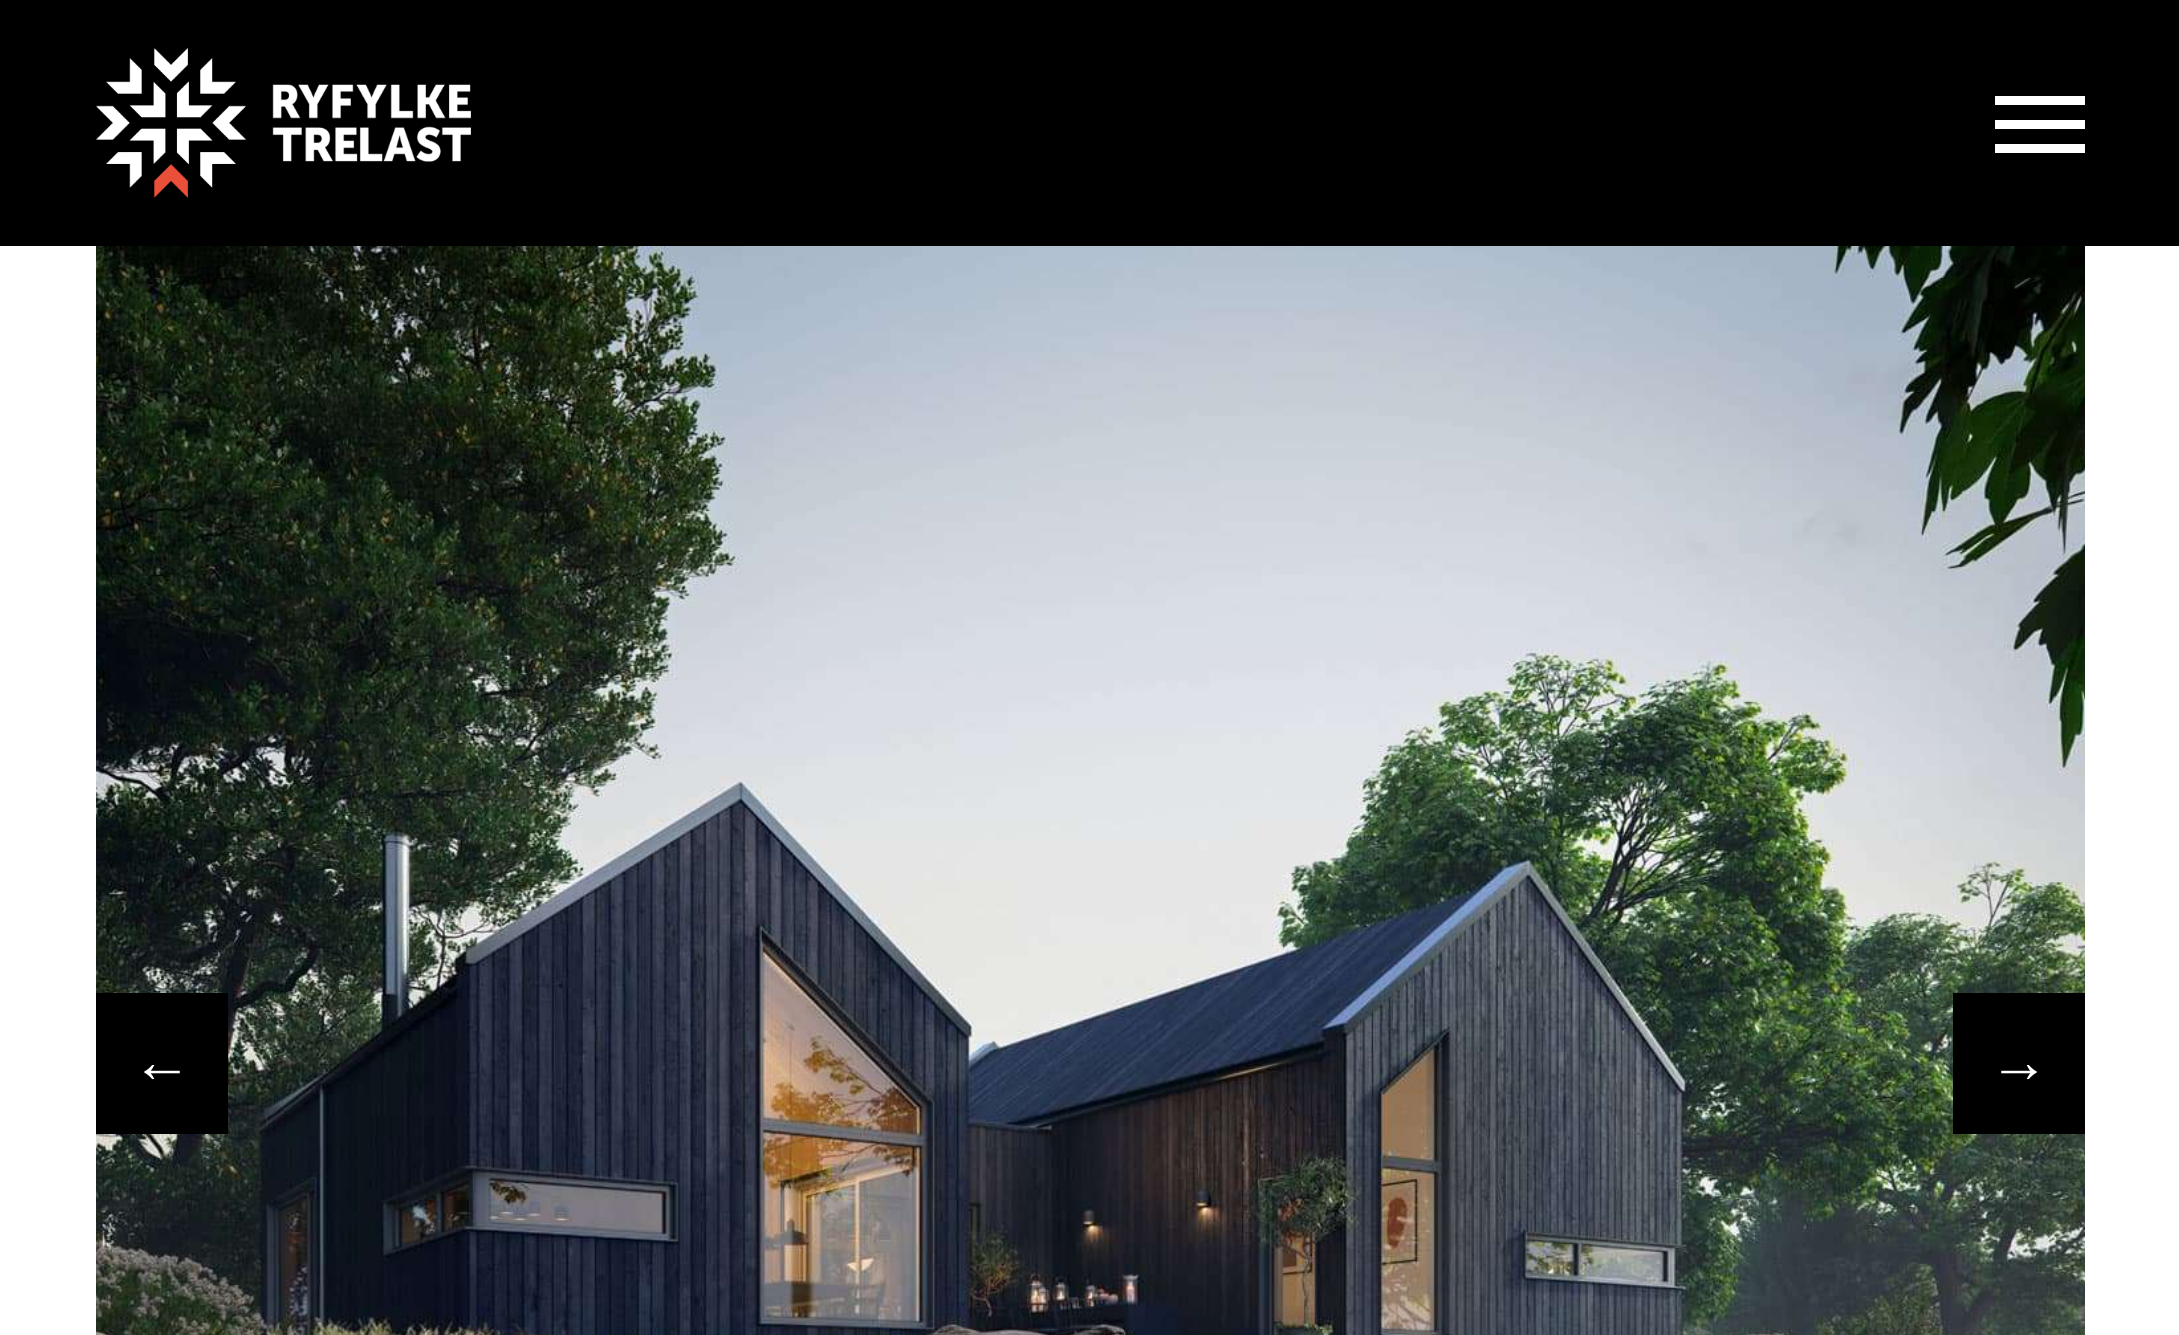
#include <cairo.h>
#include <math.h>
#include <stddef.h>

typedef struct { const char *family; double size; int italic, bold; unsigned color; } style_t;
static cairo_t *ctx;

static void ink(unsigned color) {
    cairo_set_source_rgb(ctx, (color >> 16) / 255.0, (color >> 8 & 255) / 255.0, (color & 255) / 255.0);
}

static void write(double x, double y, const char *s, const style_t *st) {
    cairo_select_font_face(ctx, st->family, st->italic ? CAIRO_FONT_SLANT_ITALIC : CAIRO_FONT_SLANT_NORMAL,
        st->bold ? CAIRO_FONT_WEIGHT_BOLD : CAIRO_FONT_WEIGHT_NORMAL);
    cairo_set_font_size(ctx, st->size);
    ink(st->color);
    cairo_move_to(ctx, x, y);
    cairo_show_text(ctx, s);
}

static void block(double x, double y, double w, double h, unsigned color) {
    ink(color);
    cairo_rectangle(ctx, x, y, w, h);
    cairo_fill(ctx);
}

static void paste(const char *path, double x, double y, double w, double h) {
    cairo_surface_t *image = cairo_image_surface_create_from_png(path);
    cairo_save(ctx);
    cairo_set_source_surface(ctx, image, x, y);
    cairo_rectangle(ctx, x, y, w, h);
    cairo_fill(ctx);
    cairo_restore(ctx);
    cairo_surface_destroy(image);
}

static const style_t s1 = {"Liberation Sans", 60, 0, 0, 0xffffff};

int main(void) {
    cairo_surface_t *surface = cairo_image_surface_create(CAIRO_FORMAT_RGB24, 2179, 1335);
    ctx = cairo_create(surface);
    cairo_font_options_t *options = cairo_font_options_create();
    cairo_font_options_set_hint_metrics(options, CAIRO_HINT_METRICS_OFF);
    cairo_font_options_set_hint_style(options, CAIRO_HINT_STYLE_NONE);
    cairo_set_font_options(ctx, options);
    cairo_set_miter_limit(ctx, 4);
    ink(0xffffff);
    cairo_paint(ctx);
    block(0, 0, 2179, 246, 0x000000);
    paste("pic1.png", 96, 48, 375, 150);
    block(1995, 96, 90, 9, 0xffffff);
    block(1995, 120, 90, 9, 0xffffff);
    block(1995, 144, 90, 9, 0xffffff);
    paste("pic2.png", 96, 246, 1989, 1089);
    block(96, 993, 132, 141, 0x000000);
    write(132, 1082, "←", &s1);
    block(1953, 993, 132, 141, 0x000000);
    write(1989, 1082, "→", &s1);
    cairo_surface_write_to_png(surface, "screenshot.png");
    cairo_font_options_destroy(options);
    cairo_destroy(ctx);
    cairo_surface_destroy(surface);
    return 0;
}
